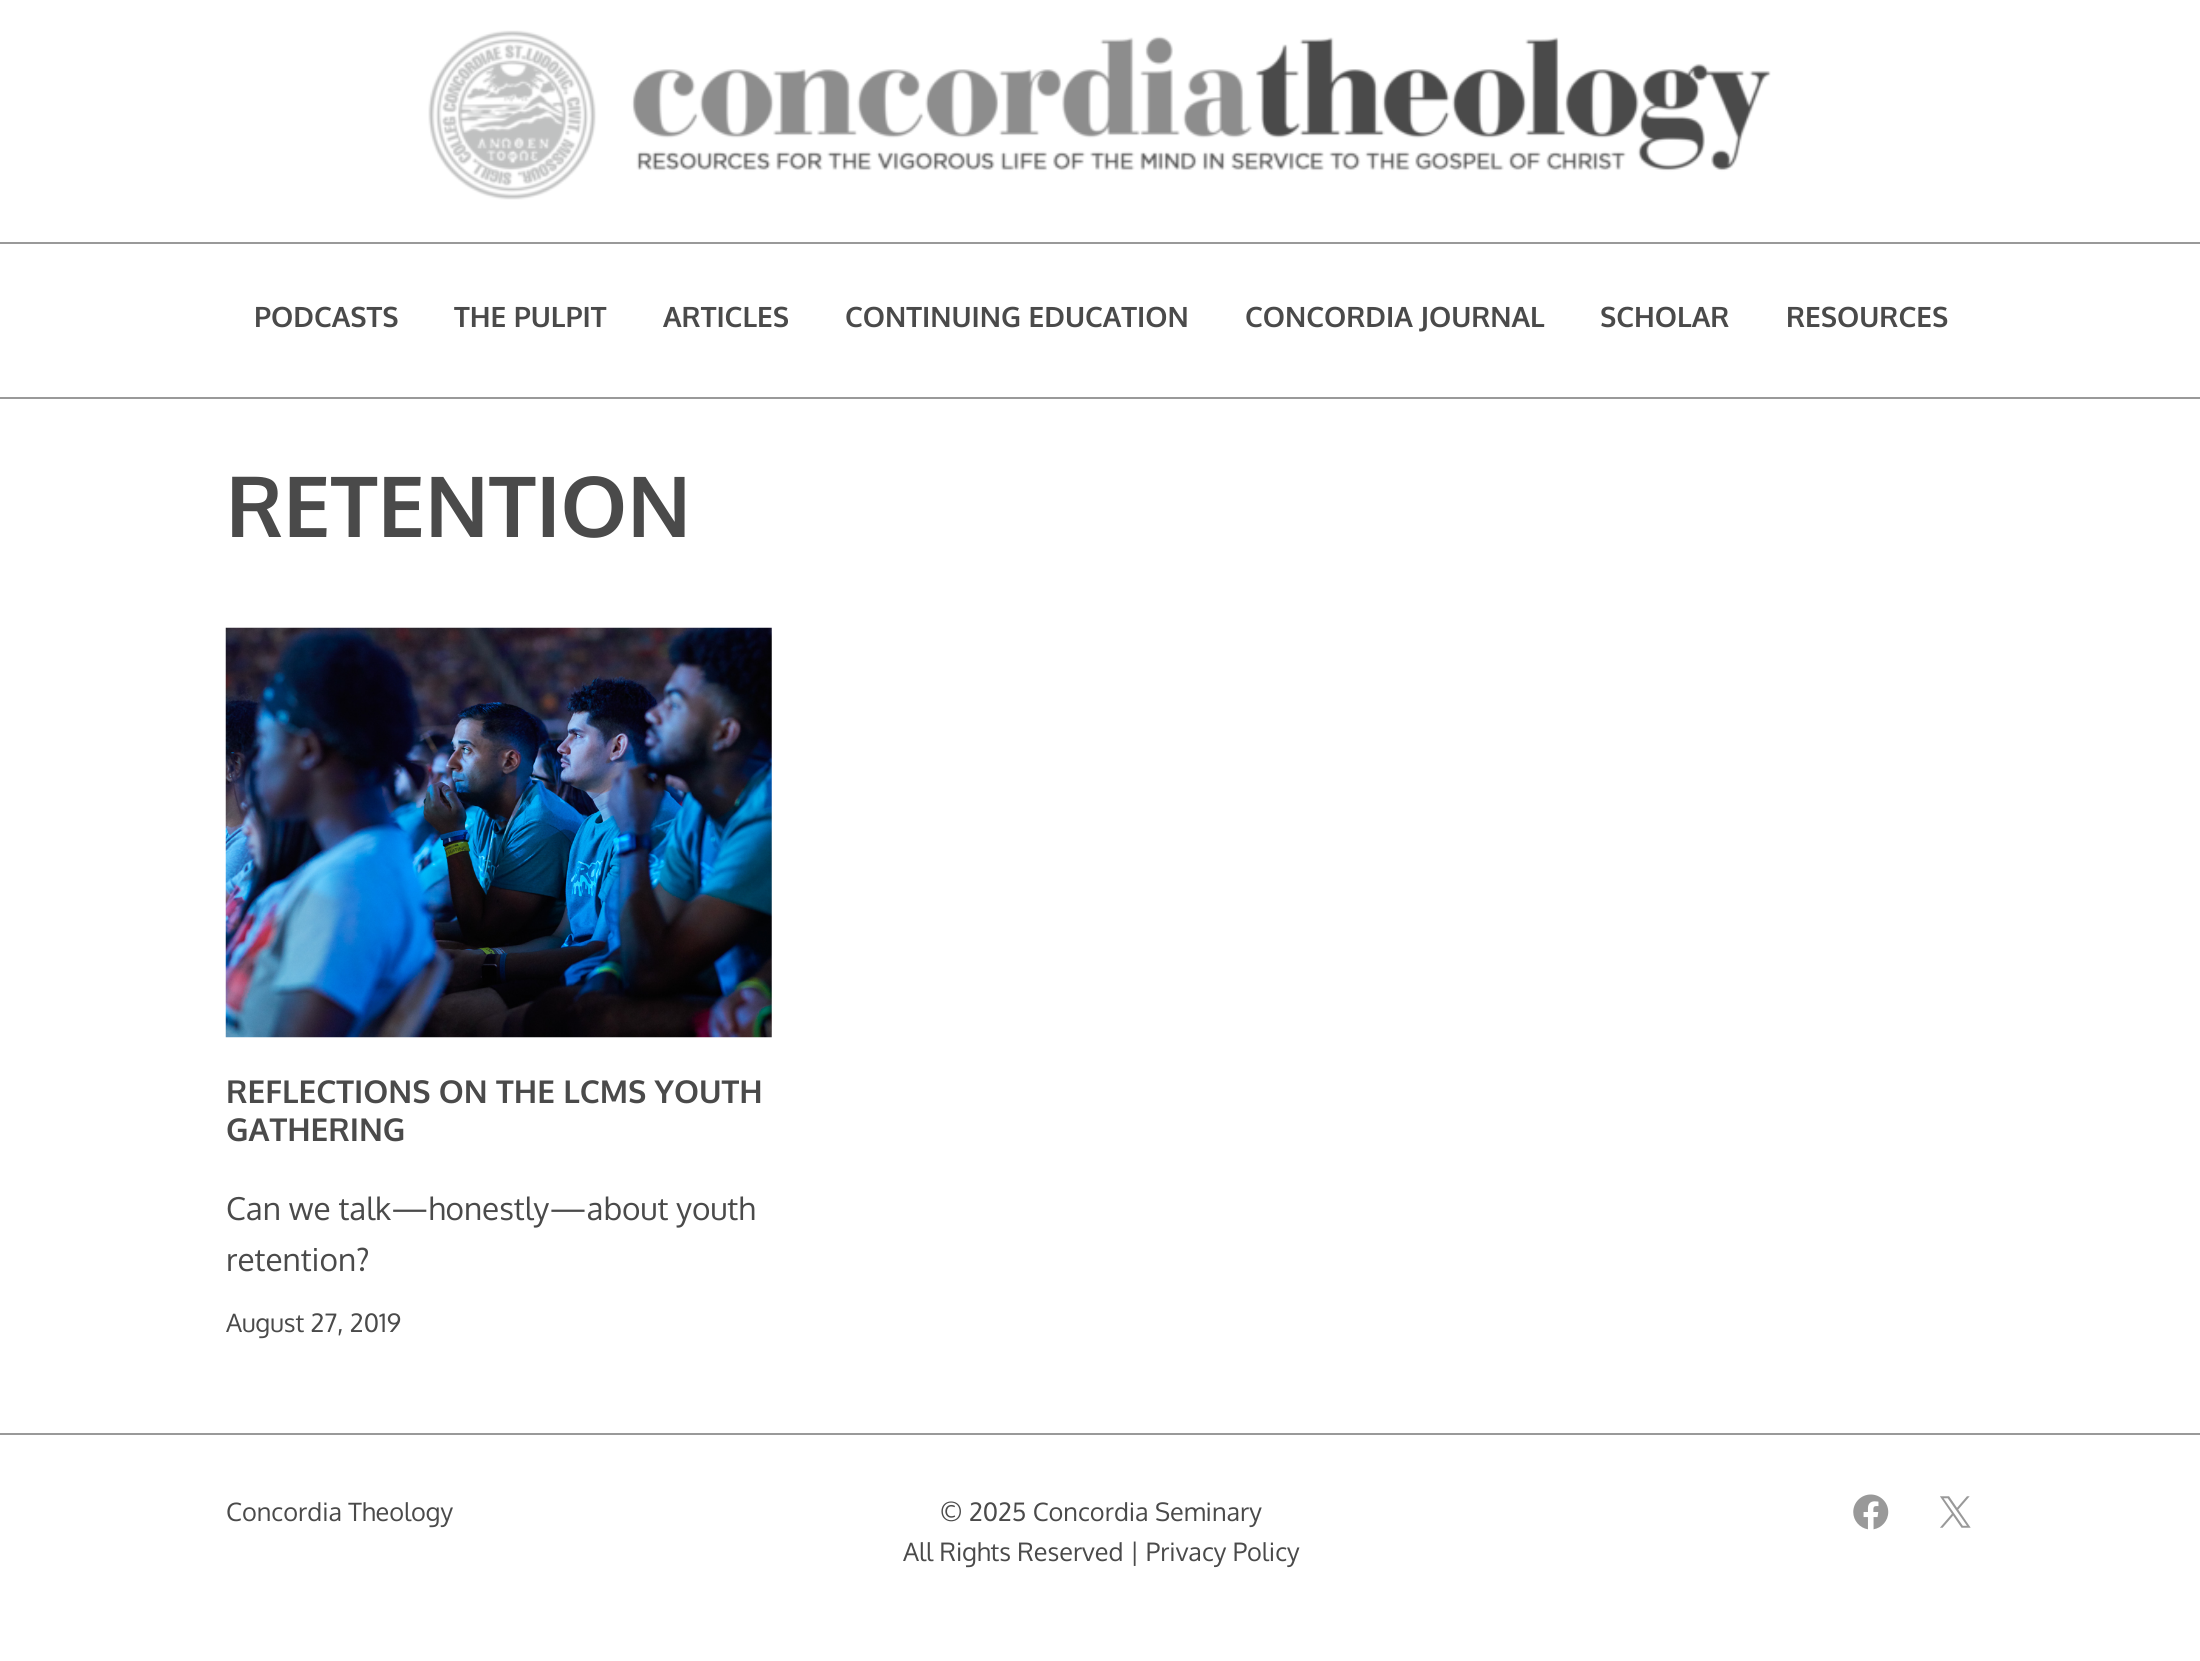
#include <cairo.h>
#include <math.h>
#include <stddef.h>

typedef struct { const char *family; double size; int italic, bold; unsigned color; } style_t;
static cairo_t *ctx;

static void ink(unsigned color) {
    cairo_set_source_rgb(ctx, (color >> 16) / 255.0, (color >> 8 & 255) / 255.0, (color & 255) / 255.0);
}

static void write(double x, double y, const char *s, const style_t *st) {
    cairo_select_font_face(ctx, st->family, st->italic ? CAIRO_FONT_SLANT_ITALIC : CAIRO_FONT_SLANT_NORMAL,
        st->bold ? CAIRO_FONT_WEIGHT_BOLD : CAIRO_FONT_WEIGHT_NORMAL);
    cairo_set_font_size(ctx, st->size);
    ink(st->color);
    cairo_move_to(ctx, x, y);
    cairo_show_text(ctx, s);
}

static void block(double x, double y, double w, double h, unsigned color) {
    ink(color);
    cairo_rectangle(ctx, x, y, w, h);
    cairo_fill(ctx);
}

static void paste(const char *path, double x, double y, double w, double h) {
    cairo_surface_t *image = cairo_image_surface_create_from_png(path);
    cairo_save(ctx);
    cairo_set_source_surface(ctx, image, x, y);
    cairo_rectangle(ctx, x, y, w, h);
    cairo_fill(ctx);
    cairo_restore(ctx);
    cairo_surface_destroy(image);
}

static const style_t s1 = {"Oxygen", 28, 0, 1, 0x4a4a4a};
static const style_t s2 = {"Oxygen", 84, 0, 1, 0x4a4a4a};
static const style_t s3 = {"Oxygen", 31.5, 0, 1, 0x4a4a4a};
static const style_t s4 = {"Oxygen", 31.5, 0, 0, 0x4a4a4a};
static const style_t s5 = {"Oxygen", 25.25, 0, 0, 0x4a4a4a};

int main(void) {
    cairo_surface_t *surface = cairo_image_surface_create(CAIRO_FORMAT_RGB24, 2200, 1661);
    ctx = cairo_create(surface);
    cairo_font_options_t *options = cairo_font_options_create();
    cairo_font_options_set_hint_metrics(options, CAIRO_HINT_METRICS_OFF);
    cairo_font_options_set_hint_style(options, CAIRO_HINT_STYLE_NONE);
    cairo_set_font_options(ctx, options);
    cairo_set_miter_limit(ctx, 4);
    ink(0xffffff);
    cairo_paint(ctx);
    block(0, 242, 2200, 2, 0x999999);
    paste("pic1.png", 428, 30, 1343, 170);
    block(0, 397, 2200, 2, 0x999999);
    write(254, 327, "PODCASTS", &s1);
    write(454, 327, "THE PULPIT", &s1);
    write(663, 327, "ARTICLES", &s1);
    write(845, 327, "CONTINUING EDUCATION", &s1);
    write(1245, 327, "CONCORDIA JOURNAL", &s1);
    write(1600, 327, "SCHOLAR", &s1);
    write(1786, 327, "RESOURCES", &s1);
    write(226, 537, "RETENTION", &s2);
    paste("pic2.png", 225, 627, 547, 411);
    write(226, 1103, "REFLECTIONS ON THE LCMS YOUTH", &s3);
    write(226, 1141, "GATHERING", &s3);
    write(226, 1220, "Can we talk—honestly—about youth", &s4);
    write(226, 1271, "retention?", &s4);
    write(226, 1332, "August 27, 2019", &s5);
    block(0, 1433, 2200, 2, 0x999999);
    write(226, 1521, "Concordia Theology", &s5);
    write(940, 1521, "© 2025 Concordia Seminary", &s5);
    write(903, 1561, "All Rights Reserved | Privacy Policy", &s5);
    paste("pic3.png", 1853, 1494, 36, 36);
    paste("pic4.png", 1940, 1496, 31, 32);
    cairo_surface_write_to_png(surface, "screenshot.png");
    cairo_font_options_destroy(options);
    cairo_destroy(ctx);
    cairo_surface_destroy(surface);
    return 0;
}
